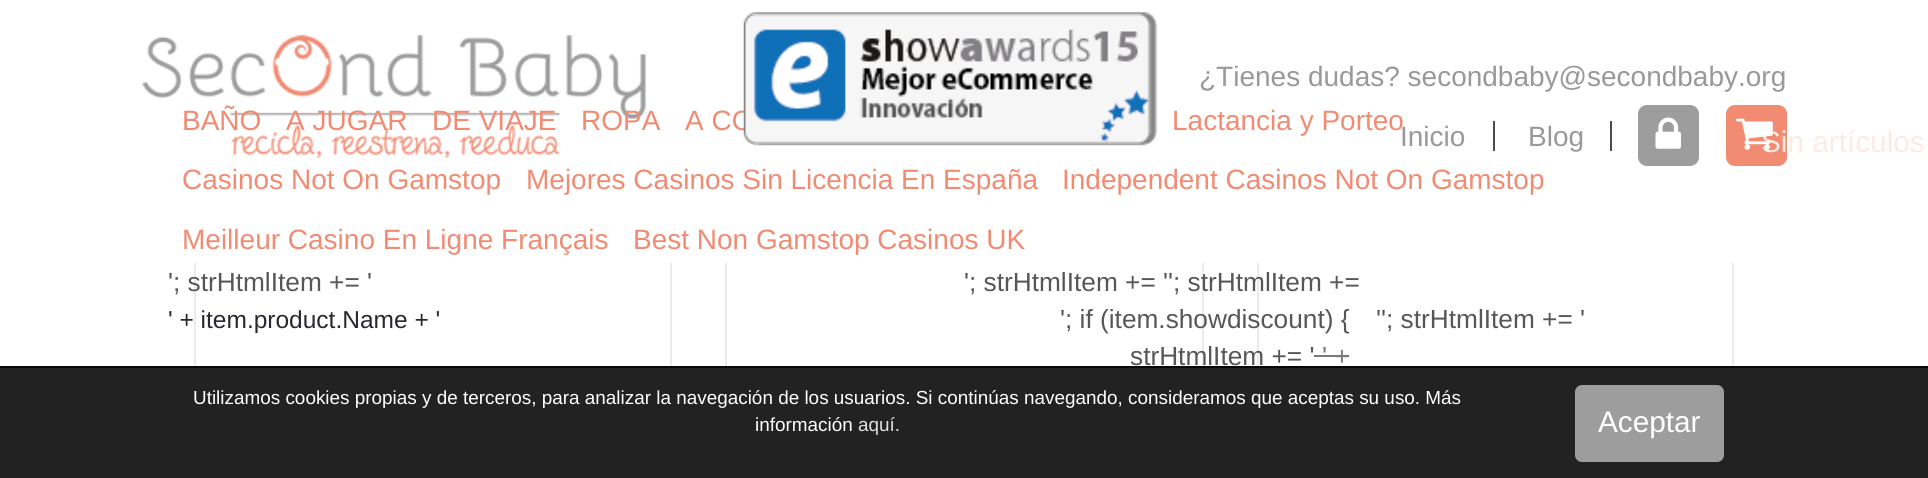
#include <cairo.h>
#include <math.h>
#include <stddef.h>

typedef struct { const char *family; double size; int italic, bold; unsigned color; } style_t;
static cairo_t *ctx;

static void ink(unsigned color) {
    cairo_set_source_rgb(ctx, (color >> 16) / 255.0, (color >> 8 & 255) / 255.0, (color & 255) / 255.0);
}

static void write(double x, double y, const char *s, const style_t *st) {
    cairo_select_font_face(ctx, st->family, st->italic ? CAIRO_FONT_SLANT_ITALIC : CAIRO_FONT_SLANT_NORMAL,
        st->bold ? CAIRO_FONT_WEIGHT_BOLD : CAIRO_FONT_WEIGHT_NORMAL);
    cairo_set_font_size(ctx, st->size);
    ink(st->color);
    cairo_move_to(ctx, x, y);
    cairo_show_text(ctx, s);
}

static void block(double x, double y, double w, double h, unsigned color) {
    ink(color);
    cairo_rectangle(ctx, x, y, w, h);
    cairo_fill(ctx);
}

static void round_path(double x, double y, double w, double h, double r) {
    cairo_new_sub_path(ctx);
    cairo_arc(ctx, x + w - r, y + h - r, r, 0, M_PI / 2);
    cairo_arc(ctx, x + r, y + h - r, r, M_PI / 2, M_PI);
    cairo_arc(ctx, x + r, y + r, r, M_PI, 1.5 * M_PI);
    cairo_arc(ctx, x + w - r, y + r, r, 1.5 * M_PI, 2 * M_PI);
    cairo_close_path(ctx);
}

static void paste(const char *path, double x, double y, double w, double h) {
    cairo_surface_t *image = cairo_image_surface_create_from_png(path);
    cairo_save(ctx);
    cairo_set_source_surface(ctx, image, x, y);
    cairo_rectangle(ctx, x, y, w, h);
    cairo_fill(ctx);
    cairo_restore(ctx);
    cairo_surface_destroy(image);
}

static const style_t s1 = {"Liberation Sans", 28, 0, 0, 0xf18b72};
static const style_t s2 = {"Liberation Sans", 28, 0, 0, 0x999999};
static const style_t s3 = {"Liberation Sans", 29.75, 0, 0, 0xfceae5};
static const style_t s4 = {"Liberation Sans", 26.25, 0, 0, 0x575757};
static const style_t s5 = {"Liberation Sans", 24.5, 0, 0, 0x29282f};
static const style_t s6 = {"Liberation Sans", 26.25, 0, 0, 0x797979};
static const style_t s7 = {"Liberation Sans", 18.9, 0, 0, 0xffffff};
static const style_t s8 = {"Liberation Sans", 18.9, 0, 0, 0xe1e1e1};
static const style_t s9 = {"Liberation Sans", 29.75, 0, 0, 0xffffff};

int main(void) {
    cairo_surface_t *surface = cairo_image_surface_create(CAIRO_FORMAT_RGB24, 1928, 478);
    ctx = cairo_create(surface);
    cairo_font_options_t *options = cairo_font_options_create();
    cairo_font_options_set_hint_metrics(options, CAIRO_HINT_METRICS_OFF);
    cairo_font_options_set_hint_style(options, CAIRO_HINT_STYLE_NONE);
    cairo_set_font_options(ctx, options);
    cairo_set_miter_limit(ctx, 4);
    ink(0xffffff);
    cairo_paint(ctx);
    cairo_rectangle(ctx, 195, -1, 476, 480);
    ink(0xebebeb);
    cairo_stroke(ctx);
    cairo_rectangle(ctx, 726, -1, 477, 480);
    cairo_stroke(ctx);
    cairo_rectangle(ctx, 1258, -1, 475, 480);
    cairo_stroke(ctx);
    block(194, 0, 1540, 263, 0xffffff);
    paste("pic1.png", 141, 35, 505, 123);
    write(685, 130, "A CO", &s1);
    paste("pic2.png", 743, 12, 415, 134);
    write(1199, 86, "¿Tienes dudas? secondbaby@secondbaby.org", &s2);
    write(182, 130, "BAÑO", &s1);
    write(286, 130, "A JUGAR", &s1);
    write(432, 130, "DE VIAJE", &s1);
    write(581, 130, "ROPA", &s1);
    write(1172, 130, "Lactancia y Porteo", &s1);
    write(182, 189, "Casinos Not On Gamstop", &s1);
    write(526, 189, "Mejores Casinos Sin Licencia En España", &s1);
    write(1062, 189, "Independent Casinos Not On Gamstop", &s1);
    write(182, 249, "Meilleur Casino En Ligne Français", &s1);
    write(633, 249, "Best Non Gamstop Casinos UK", &s1);
    ink(0x9d9d9d);
    round_path(1638, 105, 61, 61, 9);
    cairo_fill(ctx);
    paste("pic3.png", 1655, 117, 26, 32);
    write(1400, 146, "Inicio", &s2);
    block(1493, 121, 2, 30, 0x4b4c4d);
    write(1528, 146, "Blog", &s2);
    block(1610, 121, 2, 30, 0x4b4c4d);
    ink(0xf18b72);
    round_path(1727, 106, 59, 59, 8);
    cairo_fill_preserve(ctx);
    cairo_stroke(ctx);
    write(1761, 152, "Sin artículos", &s3);
    paste("pic4.png", 1736, 118, 37, 32);
    write(168, 291, "'; strHtmlItem += '", &s4);
    write(168, 328, "' + item.product.Name + '", &s5);
    write(964, 291, "'; strHtmlItem += ''; strHtmlItem +=", &s4);
    write(1060, 328, "'; if (item.showdiscount) {", &s4);
    write(1130, 365, "strHtmlItem += '", &s4);
    write(1322, 365, "' +", &s6);
    block(1314, 355, 35, 2, 0x797979);
    write(1376, 328, "''; strHtmlItem += '", &s4);
    block(0, 368, 1928, 110, 0x222222);
    block(0, 366, 1928, 2, 0x080808);
    write(193, 404, "Utilizamos cookies propias y de terceros, para analizar la navegación de los usuarios. Si continúas navegando, consideramos que aceptas su uso. Más", &s7);
    write(755, 431, "información", &s7);
    write(858, 431, "aquí.", &s8);
    ink(0x9d9d9d);
    round_path(1575, 385, 149, 77, 7);
    cairo_fill(ctx);
    write(1598, 432, "Aceptar", &s9);
    cairo_surface_write_to_png(surface, "screenshot.png");
    cairo_font_options_destroy(options);
    cairo_destroy(ctx);
    cairo_surface_destroy(surface);
    return 0;
}
